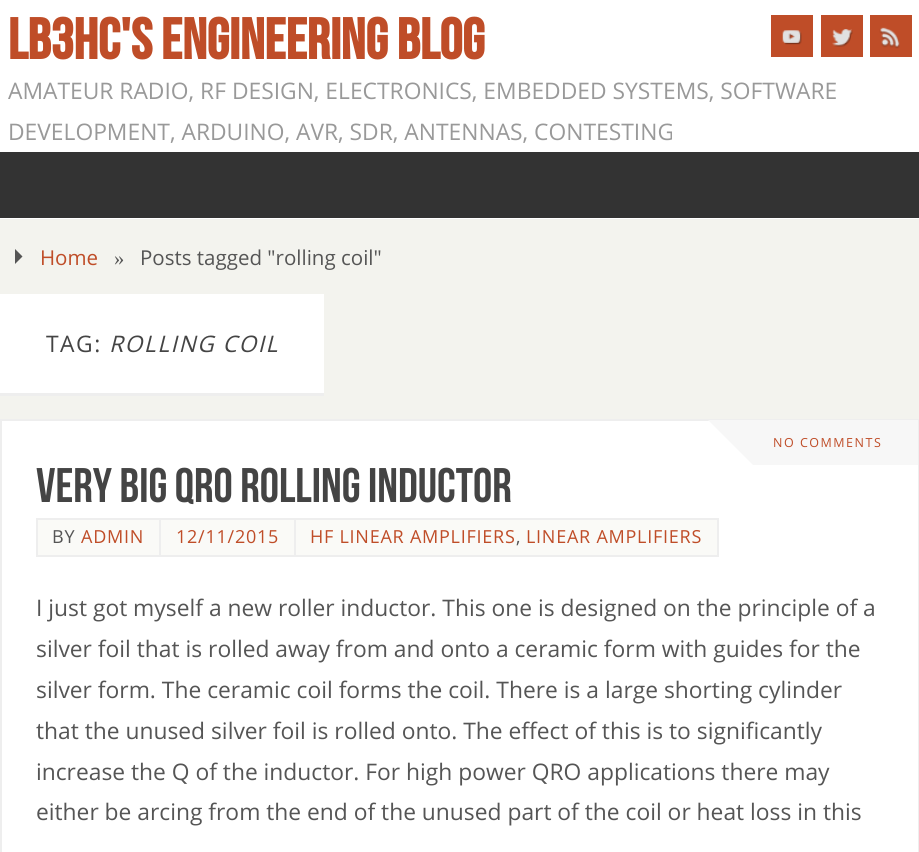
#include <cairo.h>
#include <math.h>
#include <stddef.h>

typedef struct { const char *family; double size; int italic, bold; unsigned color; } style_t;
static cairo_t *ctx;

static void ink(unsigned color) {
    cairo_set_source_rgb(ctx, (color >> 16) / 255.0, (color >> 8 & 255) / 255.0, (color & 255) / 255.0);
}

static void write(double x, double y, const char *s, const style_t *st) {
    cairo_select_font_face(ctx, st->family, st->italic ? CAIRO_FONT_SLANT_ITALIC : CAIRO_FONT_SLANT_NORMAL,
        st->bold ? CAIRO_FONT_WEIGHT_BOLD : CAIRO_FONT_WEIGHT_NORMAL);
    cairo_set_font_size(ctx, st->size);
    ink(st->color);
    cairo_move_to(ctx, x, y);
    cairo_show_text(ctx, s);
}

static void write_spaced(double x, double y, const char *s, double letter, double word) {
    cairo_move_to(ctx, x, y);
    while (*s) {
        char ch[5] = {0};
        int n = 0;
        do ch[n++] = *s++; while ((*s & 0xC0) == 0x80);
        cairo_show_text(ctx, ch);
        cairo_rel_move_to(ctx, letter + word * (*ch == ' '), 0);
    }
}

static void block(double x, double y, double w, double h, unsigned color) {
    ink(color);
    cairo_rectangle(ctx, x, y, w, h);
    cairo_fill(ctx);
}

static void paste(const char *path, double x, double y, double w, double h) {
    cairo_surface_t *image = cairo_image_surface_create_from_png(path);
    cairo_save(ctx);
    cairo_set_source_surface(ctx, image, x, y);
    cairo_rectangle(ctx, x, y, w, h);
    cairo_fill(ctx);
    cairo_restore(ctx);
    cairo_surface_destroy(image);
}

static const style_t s1 = {"Bebas Neue", 57.5, 0, 1, 0xbf4d28};
static const style_t s2 = {"Open Sans", 22.8, 0, 0, 0x999999};
static const style_t s3 = {"Open Sans", 20.5, 0, 0, 0xbf4d28};
static const style_t s4 = {"Liberation Serif", 20.5, 0, 0, 0x555555};
static const style_t s5 = {"Open Sans", 20.5, 0, 0, 0x555555};
static const style_t s6 = {"Bebas Neue", 48.5, 0, 0, 0x444444};
static const style_t s7 = {"Open Sans", 22.8, 0, 0, 0x555555};

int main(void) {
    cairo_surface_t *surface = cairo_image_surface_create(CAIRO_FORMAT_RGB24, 919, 852);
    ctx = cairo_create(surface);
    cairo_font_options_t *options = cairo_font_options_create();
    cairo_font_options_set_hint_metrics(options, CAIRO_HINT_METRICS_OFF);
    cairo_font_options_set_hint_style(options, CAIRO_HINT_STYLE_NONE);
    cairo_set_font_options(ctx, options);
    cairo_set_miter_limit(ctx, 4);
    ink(0xf3f3ee);
    cairo_paint(ctx);
    block(0, 0, 919, 219, 0xffffff);
    write(8, 59, "LB3HC'S ENGINEERING BLOG", &s1);
    write(8, 99, "AMATEUR RADIO, RF DESIGN, ELECTRONICS, EMBEDDED SYSTEMS, SOFTWARE", &s2);
    write(8, 140, "DEVELOPMENT, ARDUINO, AVR, SDR, ANTENNAS, CONTESTING", &s2);
    block(771, 15, 42, 42, 0xbf4d28);
    paste("pic1.png", 782, 30, 20, 15);
    block(821, 15, 42, 42, 0xbf4d28);
    paste("pic2.png", 832, 29, 21, 18);
    block(870, 15, 42, 42, 0xbf4d28);
    paste("pic3.png", 879, 27, 21, 22);
    block(0, 152, 919, 66, 0x333333);
    ink(0x555555);
    cairo_new_path(ctx);
    cairo_move_to(ctx, 15, 264);
    cairo_line_to(ctx, 15, 249);
    cairo_line_to(ctx, 22.5, 256.5);
    cairo_close_path(ctx);
    cairo_fill(ctx);
    write(40, 265, "Home", &s3);
    write(114, 265, "»", &s4);
    write(140, 265, "Posts tagged \"rolling coil\"", &s5);
    block(0, 294, 324, 99, 0xffffff);
    block(0, 393, 324, 3, 0xeeeeee);
    cairo_set_font_size(ctx, 22.8);
    ink(0x444444);
    write_spaced(46, 352, "TAG:", 1.5, 0);
    cairo_select_font_face(ctx, "Open Sans", CAIRO_FONT_SLANT_ITALIC, CAIRO_FONT_WEIGHT_NORMAL);
    write_spaced(109, 352, "ROLLING COIL", 1.5, 0);
    ink(0xffffff);
    cairo_rectangle(ctx, 1, 420, 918, 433);
    cairo_fill_preserve(ctx);
    ink(0xeeeeee);
    cairo_stroke(ctx);
    block(753, 420, 165, 45, 0xf7f7f7);
    cairo_new_path(ctx);
    cairo_move_to(ctx, 708, 420);
    cairo_line_to(ctx, 753, 420);
    cairo_line_to(ctx, 753, 465);
    cairo_close_path(ctx);
    cairo_fill(ctx);
    cairo_select_font_face(ctx, "Open Sans", CAIRO_FONT_SLANT_NORMAL, CAIRO_FONT_WEIGHT_NORMAL);
    cairo_set_font_size(ctx, 12.5);
    ink(0xbf4d28);
    write_spaced(773, 447, "NO COMMENTS", 1.5, 0);
    write(36, 502, "Very big QRO rolling inductor", &s6);
    ink(0xfafaf7);
    cairo_rectangle(ctx, 37, 519, 123, 37);
    cairo_fill_preserve(ctx);
    ink(0xeeeeee);
    cairo_stroke(ctx);
    cairo_select_font_face(ctx, "Open Sans", CAIRO_FONT_SLANT_NORMAL, CAIRO_FONT_WEIGHT_NORMAL);
    cairo_set_font_size(ctx, 18);
    ink(0x555555);
    write_spaced(52, 543, "BY", 0.75, 0);
    ink(0xbf4d28);
    write_spaced(81, 543, "ADMIN", 0.75, 0);
    ink(0xfafaf7);
    cairo_rectangle(ctx, 160, 519, 135, 37);
    cairo_fill_preserve(ctx);
    ink(0xeeeeee);
    cairo_stroke(ctx);
    ink(0xbf4d28);
    write_spaced(176, 543, "12/11/2015", 0.75, 0);
    ink(0xfafaf7);
    cairo_rectangle(ctx, 295, 519, 423, 37);
    cairo_fill_preserve(ctx);
    ink(0xeeeeee);
    cairo_stroke(ctx);
    ink(0xbf4d28);
    write_spaced(310, 543, "HF LINEAR AMPLIFIERS", 0.75, 0);
    ink(0x555555);
    write_spaced(516, 543, ",", 0.75, 0);
    ink(0xbf4d28);
    write_spaced(526, 543, "LINEAR AMPLIFIERS", 0.75, 0);
    write(36, 616, "I just got myself a new roller inductor. This one is designed on the principle of a", &s7);
    write(36, 657, "silver foil that is rolled away from and onto a ceramic form with guides for the", &s7);
    write(36, 698, "silver form. The ceramic coil forms the coil. There is a large shorting cylinder", &s7);
    write(36, 739, "that the unused silver foil is rolled onto. The effect of this is to significantly", &s7);
    write(36, 780, "increase the Q of the inductor. For high power QRO applications there may", &s7);
    write(36, 820, "either be arcing from the end of the unused part of the coil or heat loss in this", &s7);
    cairo_surface_write_to_png(surface, "screenshot.png");
    cairo_font_options_destroy(options);
    cairo_destroy(ctx);
    cairo_surface_destroy(surface);
    return 0;
}
